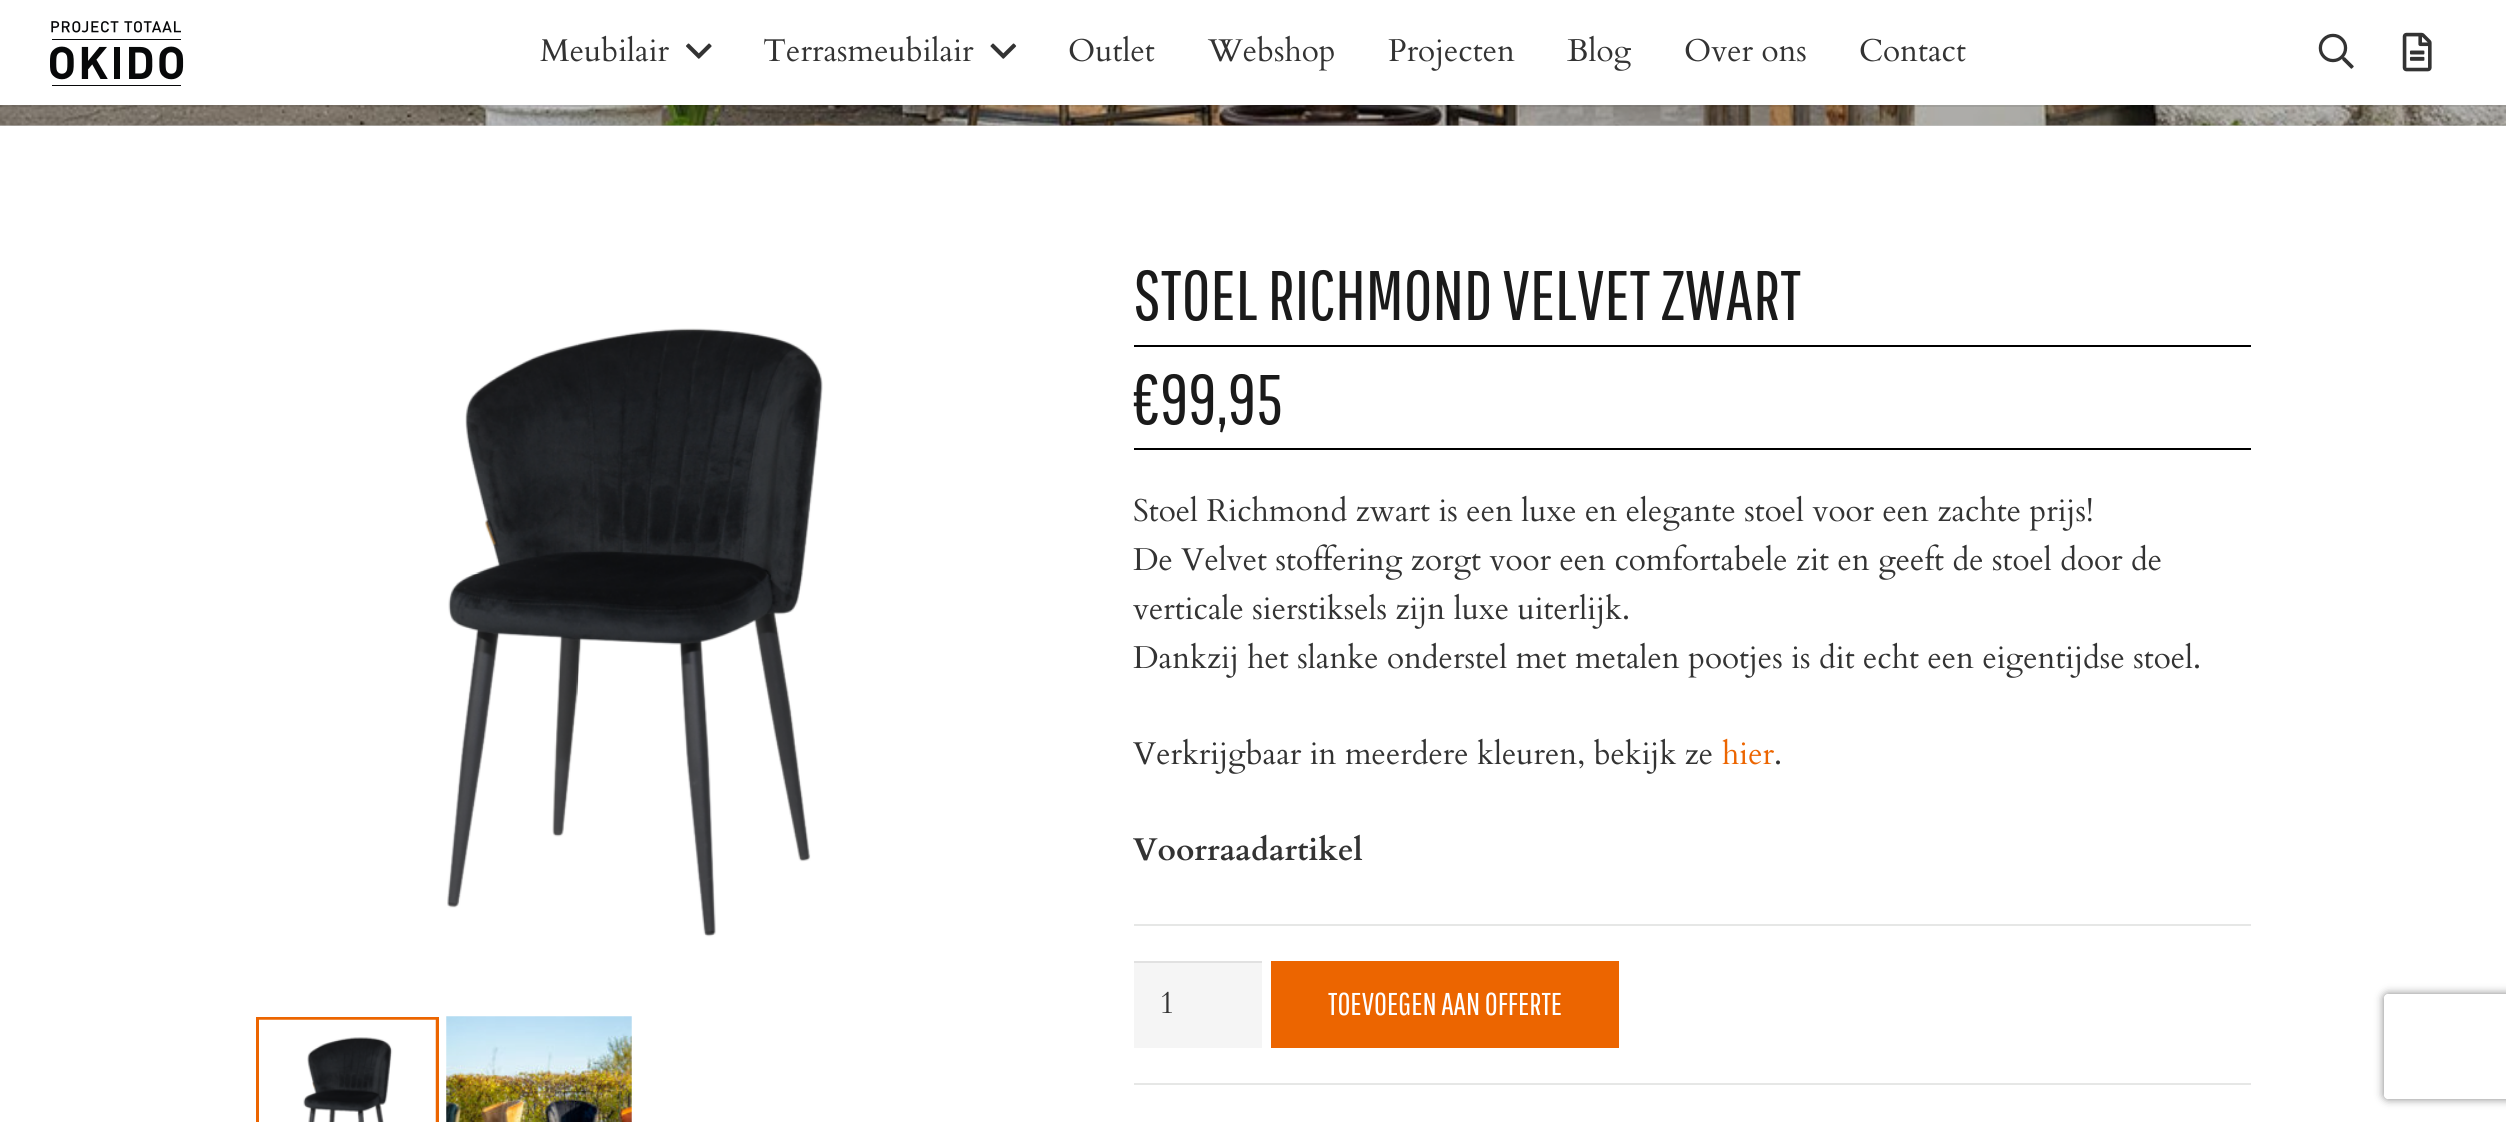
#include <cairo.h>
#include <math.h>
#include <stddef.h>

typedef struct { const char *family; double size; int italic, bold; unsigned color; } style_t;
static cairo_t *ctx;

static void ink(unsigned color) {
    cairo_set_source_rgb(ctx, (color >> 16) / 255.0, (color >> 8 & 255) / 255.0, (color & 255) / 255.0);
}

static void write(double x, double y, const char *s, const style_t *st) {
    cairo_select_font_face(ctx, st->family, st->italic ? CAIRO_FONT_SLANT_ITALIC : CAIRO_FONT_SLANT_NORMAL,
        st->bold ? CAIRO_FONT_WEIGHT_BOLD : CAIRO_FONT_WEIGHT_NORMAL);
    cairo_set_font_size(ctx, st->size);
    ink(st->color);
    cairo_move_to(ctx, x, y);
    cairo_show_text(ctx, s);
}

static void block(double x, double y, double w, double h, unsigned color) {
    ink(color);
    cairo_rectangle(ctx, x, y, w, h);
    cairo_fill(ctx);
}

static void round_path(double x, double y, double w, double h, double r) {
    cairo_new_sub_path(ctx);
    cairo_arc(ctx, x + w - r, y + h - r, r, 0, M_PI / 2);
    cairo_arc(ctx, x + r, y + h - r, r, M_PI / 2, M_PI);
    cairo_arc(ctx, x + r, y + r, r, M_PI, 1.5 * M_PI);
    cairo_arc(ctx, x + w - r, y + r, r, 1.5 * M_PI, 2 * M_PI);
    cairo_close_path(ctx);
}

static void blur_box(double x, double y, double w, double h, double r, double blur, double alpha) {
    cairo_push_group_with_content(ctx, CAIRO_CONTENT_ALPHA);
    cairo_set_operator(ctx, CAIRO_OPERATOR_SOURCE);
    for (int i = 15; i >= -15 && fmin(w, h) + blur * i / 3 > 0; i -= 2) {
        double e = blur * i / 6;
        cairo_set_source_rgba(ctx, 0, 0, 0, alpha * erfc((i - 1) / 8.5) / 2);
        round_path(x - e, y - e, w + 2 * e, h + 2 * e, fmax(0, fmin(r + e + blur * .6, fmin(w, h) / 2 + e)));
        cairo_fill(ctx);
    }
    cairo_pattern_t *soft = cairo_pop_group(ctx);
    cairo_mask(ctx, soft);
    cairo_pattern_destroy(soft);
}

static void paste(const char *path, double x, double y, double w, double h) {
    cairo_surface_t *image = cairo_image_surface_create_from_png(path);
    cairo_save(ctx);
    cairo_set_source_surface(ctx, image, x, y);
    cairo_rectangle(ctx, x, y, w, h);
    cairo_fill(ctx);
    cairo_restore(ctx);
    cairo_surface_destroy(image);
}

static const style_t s1 = {"Cardo", 31.5, 0, 0, 0x333333};
static const style_t s2 = {"Pathway Gothic One", 70, 0, 0, 0x1a1a1a};
static const style_t s3 = {"Cardo", 31.5, 0, 0, 0xec6500};
static const style_t s4 = {"Cardo", 31.5, 0, 1, 0x333333};
static const style_t s5 = {"Pathway Gothic One", 31.5, 0, 0, 0xffffff};

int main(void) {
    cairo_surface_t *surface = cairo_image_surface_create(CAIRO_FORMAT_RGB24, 2506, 1122);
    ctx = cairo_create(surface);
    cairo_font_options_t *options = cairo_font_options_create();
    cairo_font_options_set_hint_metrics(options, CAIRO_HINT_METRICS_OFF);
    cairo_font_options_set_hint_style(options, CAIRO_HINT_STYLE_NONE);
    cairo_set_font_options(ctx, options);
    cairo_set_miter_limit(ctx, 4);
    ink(0xffffff);
    cairo_paint(ctx);
    block(0, 125, 2506, 1, 0xcccccc);
    paste("pic6.png", 0, 105, 2506, 21);
    cairo_set_source_rgba(ctx, 0, 0, 0, 0.08);
    cairo_rectangle(ctx, 0, 105, 2506, 2);
    cairo_fill(ctx);
    paste("pic1.png", 50, 21, 134, 65);
    write(540, 61, "Meubilair", &s1);
    paste("pic2.png", 686, 43, 26, 16);
    write(763, 61, "Terrasmeubilair", &s1);
    paste("pic3.png", 990, 43, 27, 16);
    write(1068, 61, "Outlet", &s1);
    write(1208, 61, "Webshop", &s1);
    write(1388, 61, "Projecten", &s1);
    write(1567, 61, "Blog", &s1);
    write(1684, 61, "Over ons", &s1);
    write(1859, 61, "Contact", &s1);
    paste("pic4.png", 2318, 33, 36, 36);
    paste("pic5.png", 2402, 32, 30, 40);
    paste("pic7.png", 447, 328, 376, 609);
    cairo_rectangle(ctx, 258, 1019, 179, 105);
    ink(0xec6500);
    cairo_set_line_width(ctx, 4);
    cairo_stroke(ctx);
    paste("pic8.png", 259, 1019, 177, 103);
    paste("pic9.png", 446, 1016, 186, 106);
    block(1134, 345, 1117, 2, 0x000000);
    write(1133, 320, "STOEL RICHMOND VELVET ZWART", &s2);
    block(1134, 448, 1117, 2, 0x000000);
    write(1133, 424, "€99,95", &s2);
    write(1133, 521, "Stoel Richmond zwart is een luxe en elegante stoel voor een zachte prijs!", &s1);
    write(1133, 570, "De Velvet stoffering zorgt voor een comfortabele zit en geeft de stoel door de", &s1);
    write(1133, 619, "verticale sierstiksels zijn luxe uiterlijk.", &s1);
    write(1133, 668, "Dankzij het slanke onderstel met metalen pootjes is dit echt een eigentijdse stoel.", &s1);
    write(1133, 764, "Verkrijgbaar in meerdere kleuren, bekijk ze", &s1);
    write(1722, 764, "hier", &s3);
    write(1774, 764, ".", &s1);
    write(1133, 860, "Voorraadartikel", &s4);
    block(1134, 924, 1117, 2, 0xe6e7e6);
    block(1134, 1083, 1117, 2, 0xe6e7e6);
    block(1134, 963, 128, 85, 0xf5f5f5);
    block(1134, 961, 128, 2, 0xe1e1e1);
    write(1159, 1013, "1", &s1);
    block(1271, 961, 348, 87, 0xec6500);
    write(1328, 1015, "TOEVOEGEN AAN OFFERTE", &s5);
    cairo_save(ctx);
    cairo_set_fill_rule(ctx, CAIRO_FILL_RULE_EVEN_ODD);
    cairo_new_path(ctx);
    cairo_move_to(ctx, 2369, 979);
    cairo_line_to(ctx, 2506, 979);
    cairo_line_to(ctx, 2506, 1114);
    cairo_line_to(ctx, 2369, 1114);
    cairo_close_path(ctx);
    cairo_move_to(ctx, 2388, 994);
    cairo_line_to(ctx, 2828, 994);
    cairo_curve_to(ctx, 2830, 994, 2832, 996, 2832, 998);
    cairo_line_to(ctx, 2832, 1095);
    cairo_curve_to(ctx, 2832, 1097, 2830, 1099, 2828, 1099);
    cairo_line_to(ctx, 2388, 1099);
    cairo_curve_to(ctx, 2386, 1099, 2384, 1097, 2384, 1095);
    cairo_line_to(ctx, 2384, 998);
    cairo_curve_to(ctx, 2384, 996, 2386, 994, 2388, 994);
    cairo_close_path(ctx);
    cairo_clip(ctx);
    ink(0x808080);
    blur_box(2384, 994, 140, 105, 4, 4.5, 1);
    cairo_restore(ctx);
    cairo_surface_write_to_png(surface, "screenshot.png");
    cairo_font_options_destroy(options);
    cairo_destroy(ctx);
    cairo_surface_destroy(surface);
    return 0;
}
